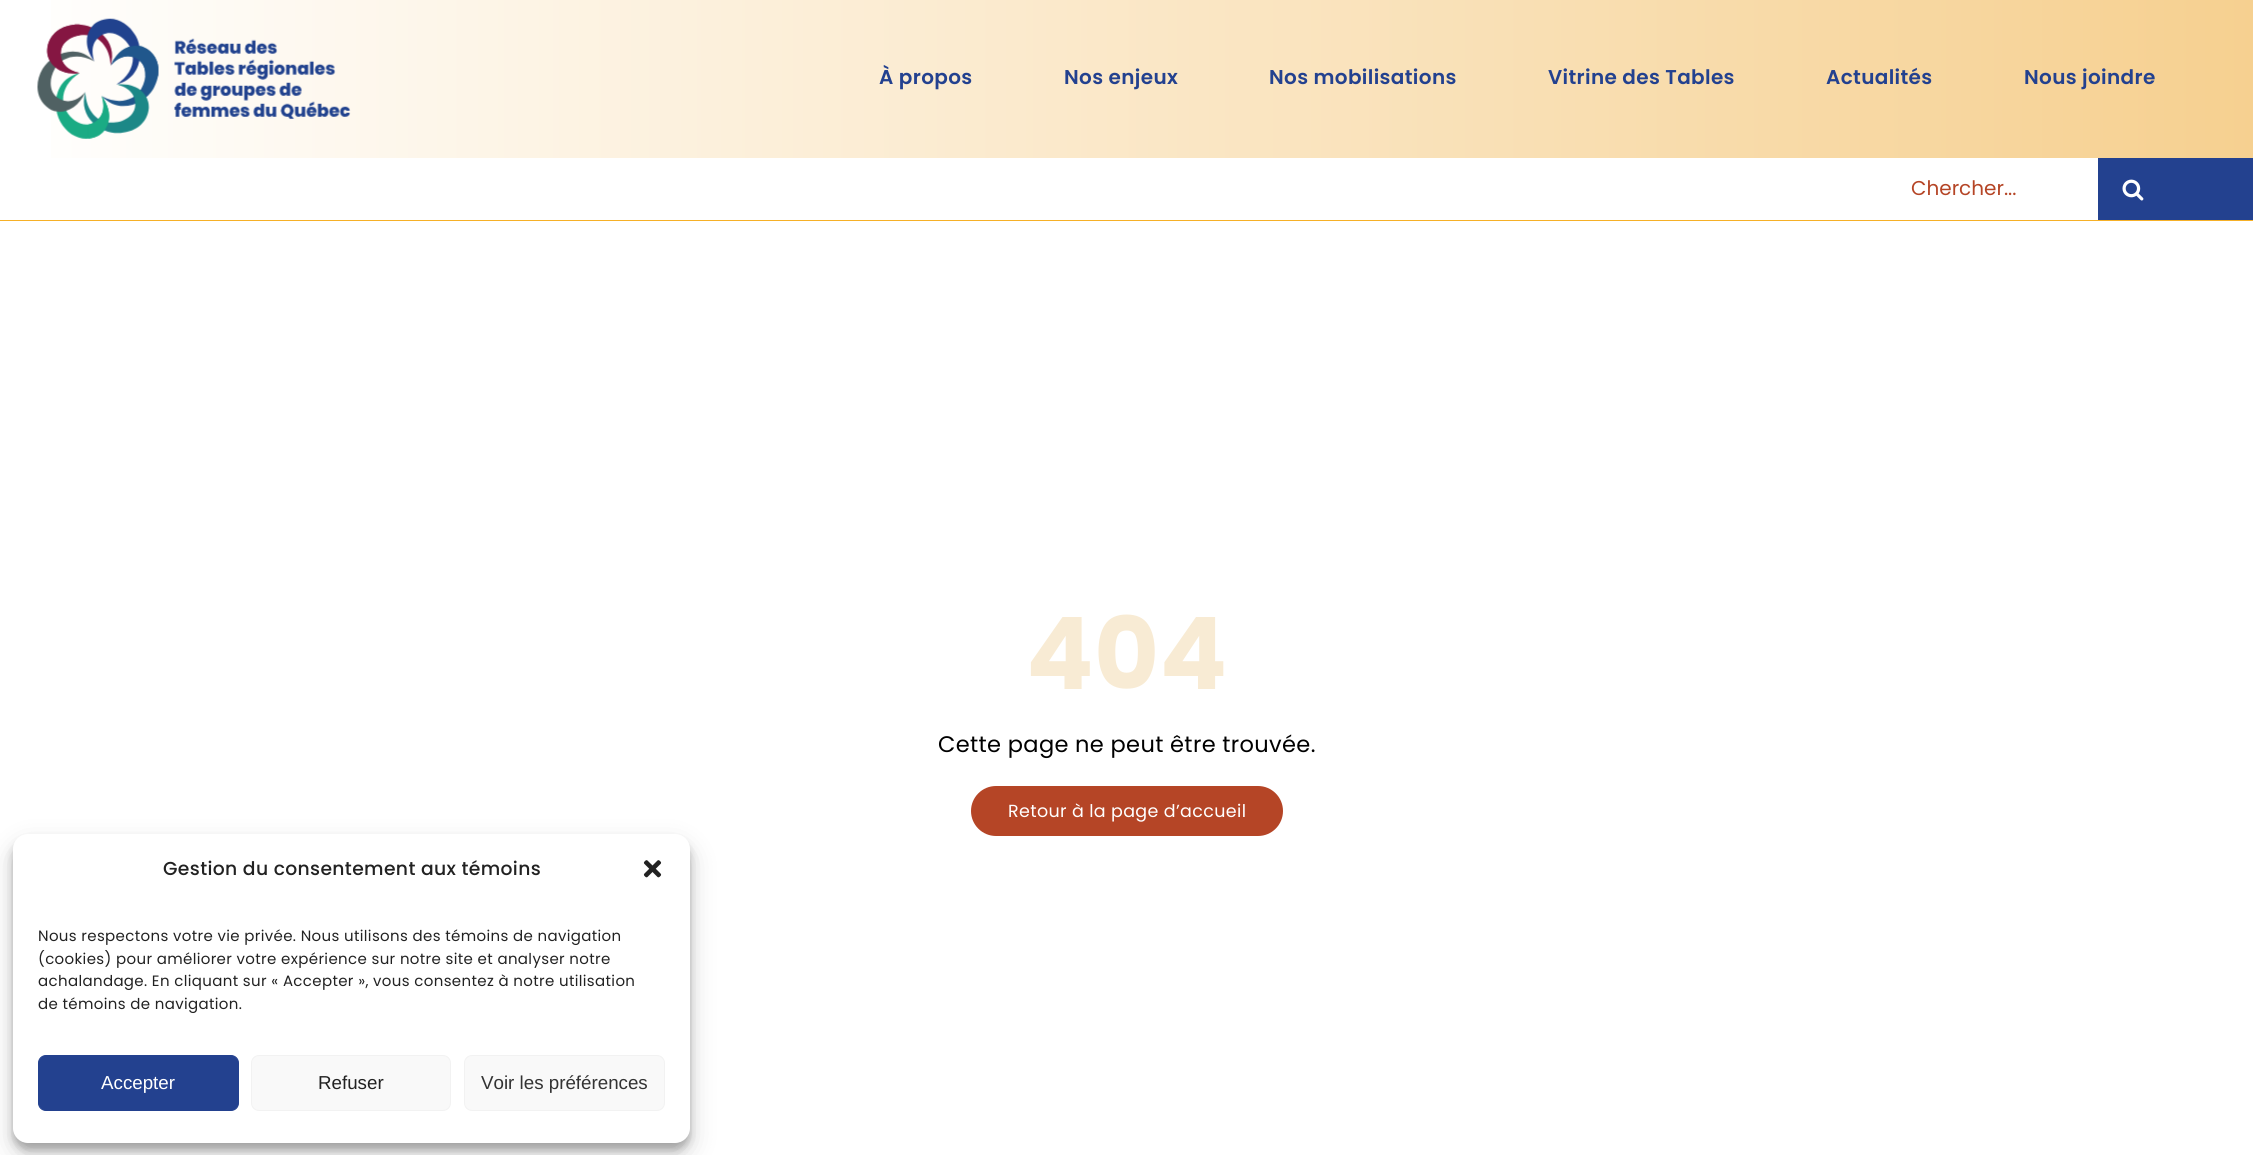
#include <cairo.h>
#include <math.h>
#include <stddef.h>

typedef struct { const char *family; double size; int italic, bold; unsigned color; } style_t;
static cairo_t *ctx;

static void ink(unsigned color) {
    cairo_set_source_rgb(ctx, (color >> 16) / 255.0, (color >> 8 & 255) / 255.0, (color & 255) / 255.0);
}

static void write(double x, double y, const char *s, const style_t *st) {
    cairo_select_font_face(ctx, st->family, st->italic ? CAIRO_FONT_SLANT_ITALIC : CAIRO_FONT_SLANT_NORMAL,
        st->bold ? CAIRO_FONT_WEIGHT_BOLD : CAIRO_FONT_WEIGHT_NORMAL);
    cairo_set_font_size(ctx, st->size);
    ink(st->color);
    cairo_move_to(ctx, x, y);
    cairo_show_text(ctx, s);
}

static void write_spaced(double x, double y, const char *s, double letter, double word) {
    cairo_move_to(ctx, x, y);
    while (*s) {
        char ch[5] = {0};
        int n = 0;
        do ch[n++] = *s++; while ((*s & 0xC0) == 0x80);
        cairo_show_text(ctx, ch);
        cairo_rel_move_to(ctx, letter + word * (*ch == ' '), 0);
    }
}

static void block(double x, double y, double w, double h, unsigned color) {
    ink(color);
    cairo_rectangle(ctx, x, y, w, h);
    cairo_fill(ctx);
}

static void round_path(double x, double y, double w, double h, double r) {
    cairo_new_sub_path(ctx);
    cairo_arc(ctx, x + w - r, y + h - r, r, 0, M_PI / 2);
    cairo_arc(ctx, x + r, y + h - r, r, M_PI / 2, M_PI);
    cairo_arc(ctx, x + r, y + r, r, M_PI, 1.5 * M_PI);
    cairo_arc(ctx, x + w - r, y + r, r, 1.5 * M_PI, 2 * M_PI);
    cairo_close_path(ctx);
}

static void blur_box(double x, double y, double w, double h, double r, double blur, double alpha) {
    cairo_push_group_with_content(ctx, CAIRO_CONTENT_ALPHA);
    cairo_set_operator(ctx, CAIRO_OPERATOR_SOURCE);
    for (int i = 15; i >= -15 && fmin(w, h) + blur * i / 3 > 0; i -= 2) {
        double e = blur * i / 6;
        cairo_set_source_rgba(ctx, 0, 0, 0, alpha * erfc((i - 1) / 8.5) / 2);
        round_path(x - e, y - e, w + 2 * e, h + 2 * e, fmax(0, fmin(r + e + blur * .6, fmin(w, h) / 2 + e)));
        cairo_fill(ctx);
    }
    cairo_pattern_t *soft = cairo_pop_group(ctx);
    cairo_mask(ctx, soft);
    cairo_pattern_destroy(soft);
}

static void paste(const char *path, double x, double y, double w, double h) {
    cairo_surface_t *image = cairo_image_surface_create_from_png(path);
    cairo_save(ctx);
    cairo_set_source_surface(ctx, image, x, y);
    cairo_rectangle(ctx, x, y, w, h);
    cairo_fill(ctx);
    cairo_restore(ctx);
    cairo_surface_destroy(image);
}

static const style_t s1 = {"Poppins", 20, 0, 0, 0xb54526};
static const style_t s2 = {"Liberation Sans", 18.75, 0, 0, 0xffffff};
static const style_t s3 = {"Liberation Sans", 18.75, 0, 0, 0x222222};
static const style_t s4 = {"Liberation Sans", 18.75, 0, 0, 0x333333};

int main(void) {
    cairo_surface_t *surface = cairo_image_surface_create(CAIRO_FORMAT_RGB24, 2253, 1155);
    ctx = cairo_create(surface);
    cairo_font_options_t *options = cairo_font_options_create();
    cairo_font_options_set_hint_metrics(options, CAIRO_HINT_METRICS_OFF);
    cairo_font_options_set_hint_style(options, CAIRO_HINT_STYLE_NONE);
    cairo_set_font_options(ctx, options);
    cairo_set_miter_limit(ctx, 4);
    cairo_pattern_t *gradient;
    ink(0xffffff);
    cairo_paint(ctx);
    gradient = cairo_pattern_create_linear(0, 79, 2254, 79);
    cairo_pattern_add_color_stop_rgba(gradient, 0, 1, 1, 1, 1);
    cairo_pattern_add_color_stop_rgba(gradient, 1, 0.965, 0.816, 0.565, 1);
    cairo_set_source(ctx, gradient);
    cairo_pattern_destroy(gradient);
    cairo_rectangle(ctx, 51, 0, 2202, 158);
    cairo_fill(ctx);
    paste("pic1.png", 37, 18, 314, 121);
    cairo_select_font_face(ctx, "Poppins SemiBold", CAIRO_FONT_SLANT_NORMAL, CAIRO_FONT_WEIGHT_NORMAL);
    cairo_set_font_size(ctx, 20);
    ink(0x23418f);
    write_spaced(879, 84, "À propos", 0.35, 0);
    write_spaced(1064, 84, "Nos enjeux", 0.35, 0);
    write_spaced(1269, 84, "Nos mobilisations", 0.35, 0);
    write_spaced(1548, 84, "Vitrine des Tables", 0.35, 0);
    write_spaced(1826, 84, "Actualités", 0.35, 0);
    write_spaced(2024, 84, "Nous joindre", 0.35, 0);
    block(0, 220, 2253, 1, 0xf6b027);
    write(1911, 195, "Chercher...", &s1);
    block(2098, 158, 155, 62, 0x23418f);
    paste("pic2.png", 2122, 179, 22, 22);
    cairo_select_font_face(ctx, "Poppins", CAIRO_FONT_SLANT_NORMAL, CAIRO_FONT_WEIGHT_BOLD);
    cairo_set_font_size(ctx, 100);
    ink(0xf8ebd4);
    write_spaced(1026, 689, "404", 0.35, 0);
    cairo_select_font_face(ctx, "Poppins", CAIRO_FONT_SLANT_NORMAL, CAIRO_FONT_WEIGHT_NORMAL);
    cairo_set_font_size(ctx, 22.5);
    ink(0x000000);
    write_spaced(938, 752, "Cette page ne peut être trouvée.", 0.35, 0);
    ink(0xb54526);
    round_path(971, 786, 312, 50, 25);
    cairo_fill(ctx);
    cairo_set_font_size(ctx, 17.5);
    ink(0xffffff);
    write_spaced(1008, 817, "Retour à la page d’accueil", 0.35, 0);
    ink(0x000000);
    blur_box(13, 841, 677, 309, 15, 4, 0.23);
    blur_box(13, 846, 677, 309, 15, 12.5, 0.19);
    ink(0xffffff);
    round_path(13, 834, 677, 309, 15);
    cairo_fill(ctx);
    cairo_select_font_face(ctx, "Poppins Medium", CAIRO_FONT_SLANT_NORMAL, CAIRO_FONT_WEIGHT_NORMAL);
    cairo_set_font_size(ctx, 18.75);
    ink(0x222222);
    write_spaced(163, 875, "Gestion du consentement aux témoins", 0.35, 0);
    paste("pic3.png", 643, 860, 19, 18);
    cairo_select_font_face(ctx, "Poppins", CAIRO_FONT_SLANT_NORMAL, CAIRO_FONT_WEIGHT_NORMAL);
    cairo_set_font_size(ctx, 15);
    write_spaced(38, 941, "Nous respectons votre vie privée. Nous utilisons des témoins de navigation", 0.35, 0);
    write_spaced(38, 964, "(cookies) pour améliorer votre expérience sur notre site et analyser notre", 0.35, 0);
    write_spaced(38, 986, "achalandage. En cliquant sur « Accepter », vous consentez à notre utilisation", 0.35, 0);
    write_spaced(38, 1009, "de témoins de navigation.", 0.35, 0);
    ink(0x23418f);
    round_path(38.5, 1055.5, 200, 55, 7.5);
    cairo_fill_preserve(ctx);
    cairo_set_line_width(ctx, 1);
    cairo_stroke(ctx);
    write(101, 1089, "Accepter", &s2);
    ink(0xf9f9f9);
    round_path(251.5, 1055.5, 199, 55, 7.5);
    cairo_fill_preserve(ctx);
    ink(0xf2f2f2);
    cairo_stroke(ctx);
    write(318, 1089, "Refuser", &s3);
    ink(0xf9f9f9);
    round_path(464.5, 1055.5, 200, 55, 7.5);
    cairo_fill_preserve(ctx);
    ink(0xf2f2f2);
    cairo_stroke(ctx);
    write(481, 1089, "Voir les préférences", &s4);
    cairo_surface_write_to_png(surface, "screenshot.png");
    cairo_font_options_destroy(options);
    cairo_destroy(ctx);
    cairo_surface_destroy(surface);
    return 0;
}
